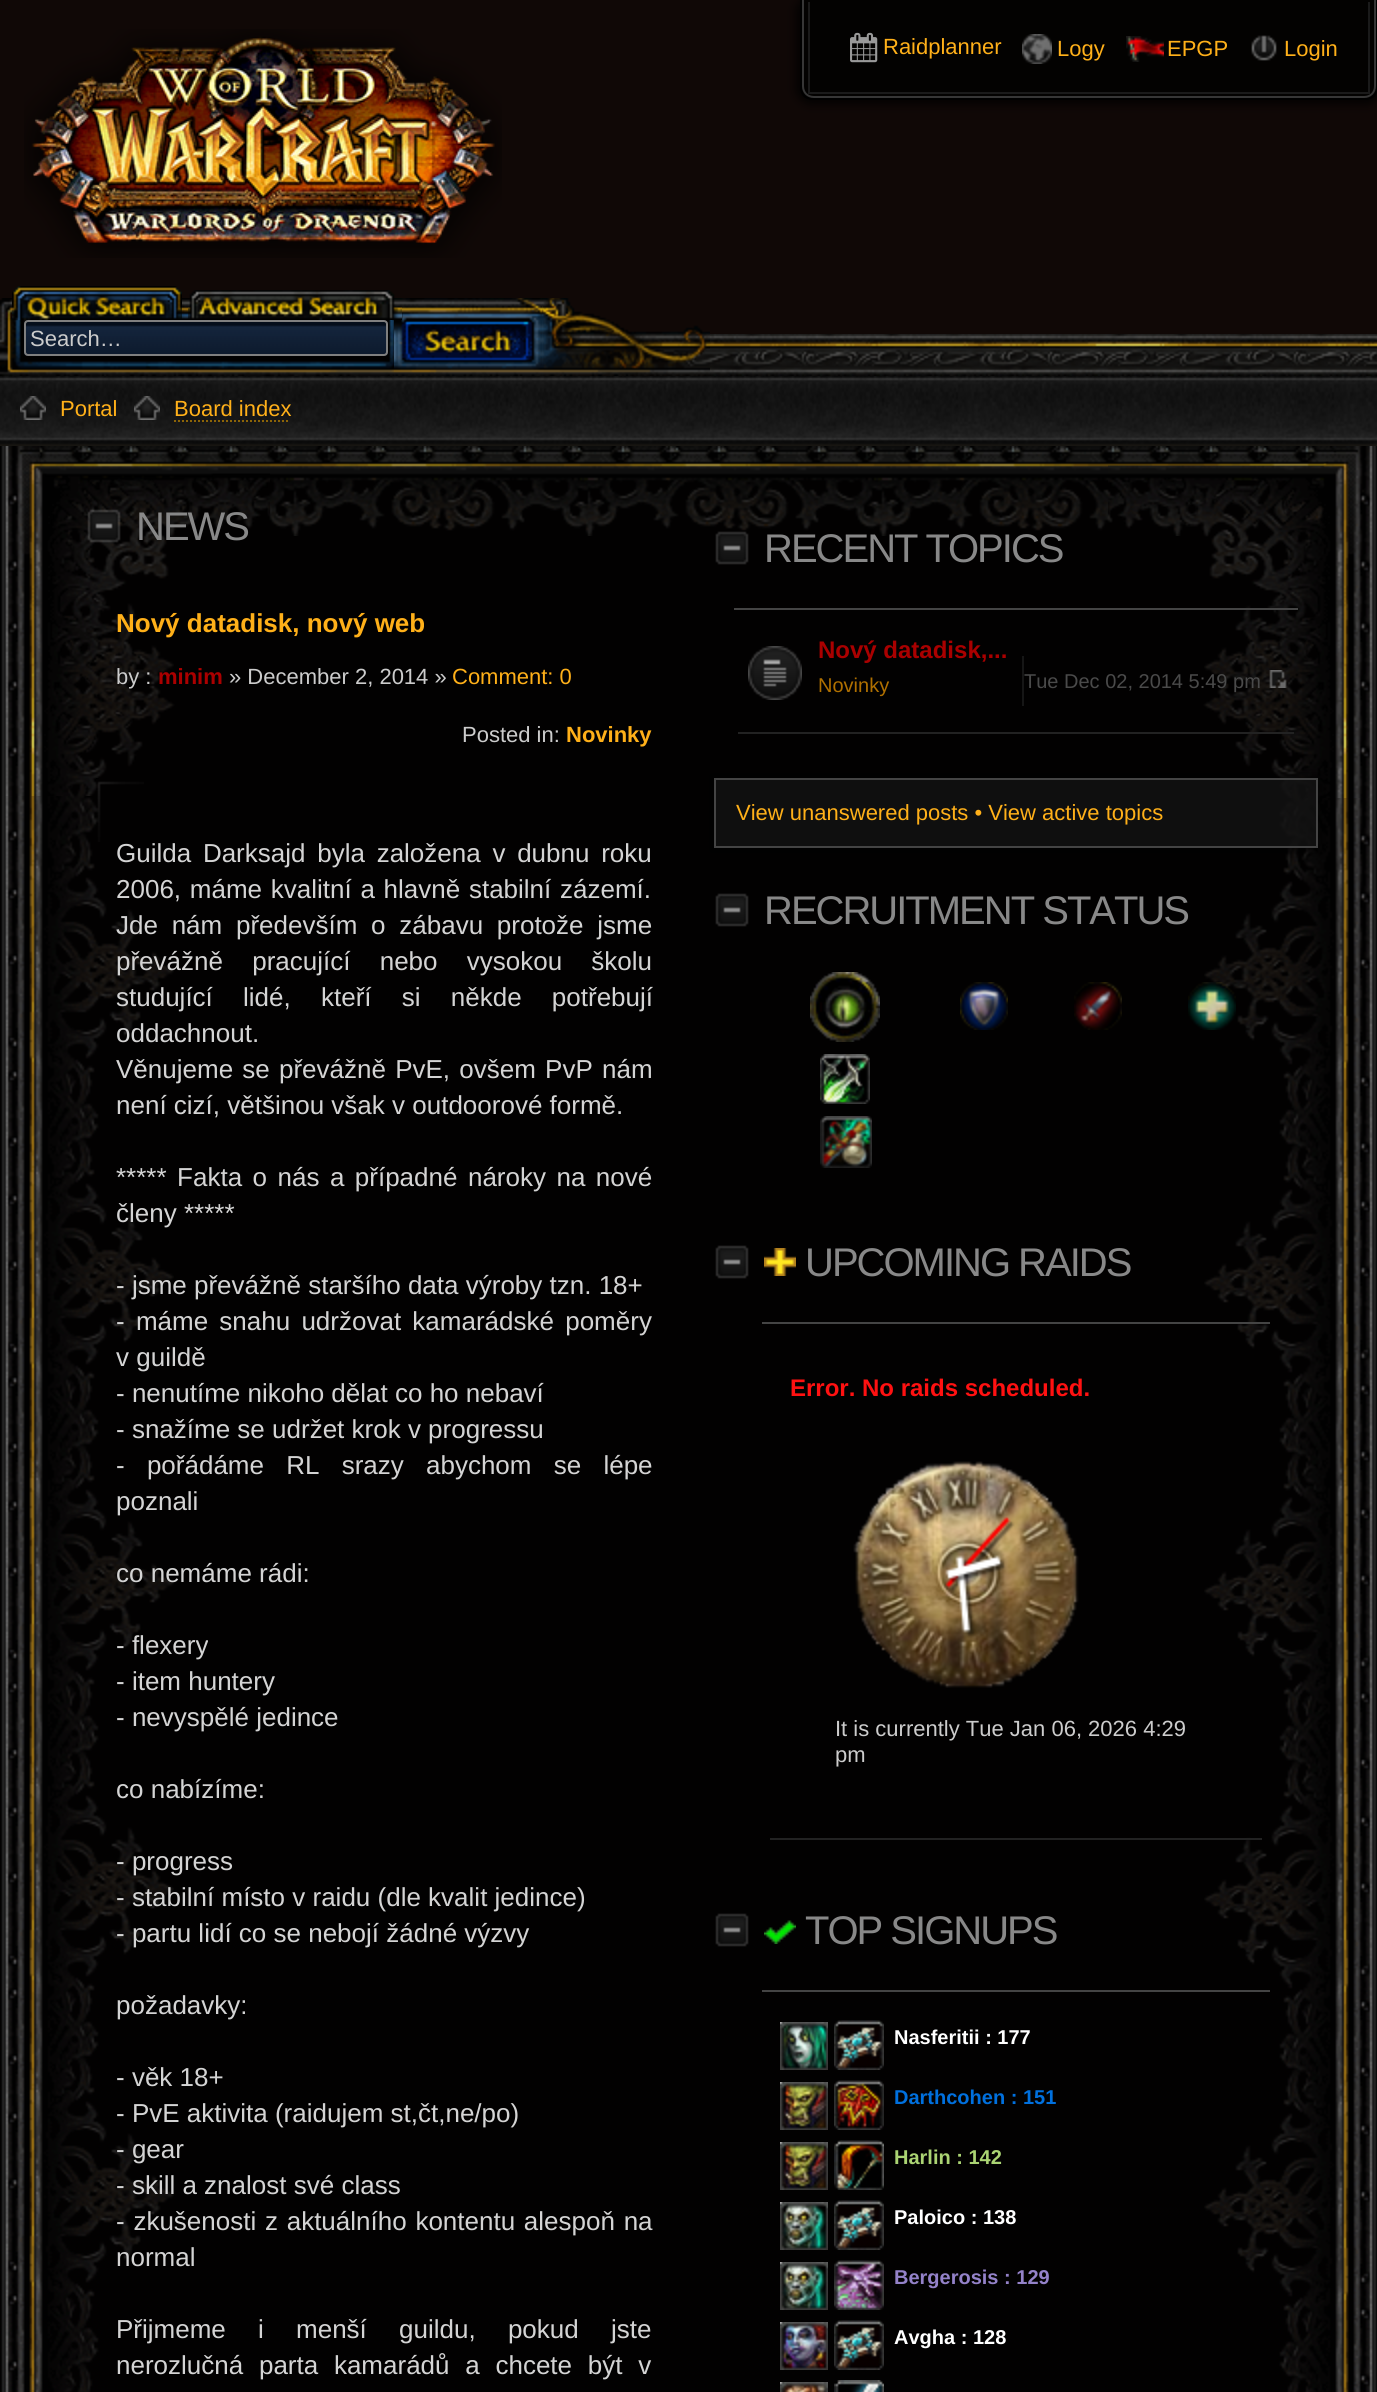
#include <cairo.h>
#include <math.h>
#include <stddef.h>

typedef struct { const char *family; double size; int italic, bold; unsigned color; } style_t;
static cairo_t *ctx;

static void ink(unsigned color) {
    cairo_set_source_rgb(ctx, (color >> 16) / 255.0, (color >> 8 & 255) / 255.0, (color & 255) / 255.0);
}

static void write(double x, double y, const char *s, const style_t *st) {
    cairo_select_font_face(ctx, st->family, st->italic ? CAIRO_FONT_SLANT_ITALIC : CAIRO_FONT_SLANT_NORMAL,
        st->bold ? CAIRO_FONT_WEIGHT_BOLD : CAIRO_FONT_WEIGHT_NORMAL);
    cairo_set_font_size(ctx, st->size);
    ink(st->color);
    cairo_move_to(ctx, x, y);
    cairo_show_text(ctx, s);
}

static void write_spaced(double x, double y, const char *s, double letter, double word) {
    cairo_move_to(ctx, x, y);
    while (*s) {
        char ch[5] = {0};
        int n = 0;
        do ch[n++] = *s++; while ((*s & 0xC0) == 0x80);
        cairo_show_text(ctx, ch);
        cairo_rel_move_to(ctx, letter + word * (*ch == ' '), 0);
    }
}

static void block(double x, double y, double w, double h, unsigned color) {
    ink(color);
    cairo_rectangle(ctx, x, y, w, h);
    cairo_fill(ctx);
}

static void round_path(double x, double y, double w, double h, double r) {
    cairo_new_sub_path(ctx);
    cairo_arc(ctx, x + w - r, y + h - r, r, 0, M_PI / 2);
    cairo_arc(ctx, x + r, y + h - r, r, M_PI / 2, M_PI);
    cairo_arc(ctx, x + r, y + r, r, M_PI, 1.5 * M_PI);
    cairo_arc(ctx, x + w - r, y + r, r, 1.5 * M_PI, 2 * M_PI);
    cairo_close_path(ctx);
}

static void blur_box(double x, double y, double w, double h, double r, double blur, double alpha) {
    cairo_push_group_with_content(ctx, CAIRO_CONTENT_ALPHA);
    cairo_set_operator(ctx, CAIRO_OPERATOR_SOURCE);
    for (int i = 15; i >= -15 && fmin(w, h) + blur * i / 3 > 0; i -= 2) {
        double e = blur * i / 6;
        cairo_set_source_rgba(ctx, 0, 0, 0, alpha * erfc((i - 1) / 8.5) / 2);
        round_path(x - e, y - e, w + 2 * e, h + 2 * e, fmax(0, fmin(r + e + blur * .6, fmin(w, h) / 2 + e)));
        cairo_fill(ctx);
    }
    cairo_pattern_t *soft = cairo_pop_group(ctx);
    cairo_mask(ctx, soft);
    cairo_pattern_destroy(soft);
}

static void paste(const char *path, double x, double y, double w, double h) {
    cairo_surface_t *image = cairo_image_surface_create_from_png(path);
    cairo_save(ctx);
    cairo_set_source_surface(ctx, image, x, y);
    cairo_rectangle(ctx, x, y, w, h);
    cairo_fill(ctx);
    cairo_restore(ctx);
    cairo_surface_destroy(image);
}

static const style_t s1 = {"Liberation Sans", 22, 0, 0, 0xffb019};
static const style_t s2 = {"Liberation Sans", 22, 0, 0, 0xcccccc};
static const style_t s3 = {"Liberation Sans", 26, 0, 1, 0xffb019};
static const style_t s4 = {"Liberation Sans", 22, 0, 1, 0xaa0000};
static const style_t s5 = {"Liberation Sans", 22, 0, 1, 0xffb019};
static const style_t s6 = {"Liberation Sans", 26, 0, 0, 0xd4d4d4};
static const style_t s7 = {"Liberation Sans", 24, 0, 1, 0xaa0000};
static const style_t s8 = {"Liberation Sans", 20, 0, 0, 0xb07000};
static const style_t s9 = {"Liberation Sans", 20, 0, 0, 0x4a4a4a};
static const style_t s10 = {"Liberation Sans", 24, 0, 1, 0xff1111};
static const style_t s11 = {"Liberation Sans", 20, 0, 1, 0xffffff};
static const style_t s12 = {"Liberation Sans", 20, 0, 1, 0x0070de};
static const style_t s13 = {"Liberation Sans", 20, 0, 1, 0xabd473};
static const style_t s14 = {"Liberation Sans", 20, 0, 1, 0x9482c9};

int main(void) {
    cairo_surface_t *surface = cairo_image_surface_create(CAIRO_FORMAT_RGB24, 1377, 2392);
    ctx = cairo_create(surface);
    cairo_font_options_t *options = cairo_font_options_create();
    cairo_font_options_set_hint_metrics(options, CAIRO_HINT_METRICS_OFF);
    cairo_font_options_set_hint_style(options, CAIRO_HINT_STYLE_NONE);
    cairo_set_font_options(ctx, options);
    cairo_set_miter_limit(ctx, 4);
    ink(0x100806);
    cairo_paint(ctx);
    paste("pic1.png", 24, 29, 478, 229);
    cairo_save(ctx);
    cairo_set_fill_rule(ctx, CAIRO_FILL_RULE_EVEN_ODD);
    cairo_new_path(ctx);
    cairo_move_to(ctx, 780, 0);
    cairo_line_to(ctx, 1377, 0);
    cairo_line_to(ctx, 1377, 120);
    cairo_line_to(ctx, 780, 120);
    cairo_close_path(ctx);
    cairo_move_to(ctx, 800, 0);
    cairo_line_to(ctx, 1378, 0);
    cairo_line_to(ctx, 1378, 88);
    cairo_curve_to(ctx, 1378, 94.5, 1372.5, 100, 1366, 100);
    cairo_line_to(ctx, 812, 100);
    cairo_curve_to(ctx, 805.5, 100, 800, 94.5, 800, 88);
    cairo_close_path(ctx);
    cairo_clip(ctx);
    ink(0x000000);
    blur_box(796, -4, 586, 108, 16, 5, 0.85);
    cairo_restore(ctx);
    cairo_set_source_rgba(ctx, 0, 0, 0, 0.8);
    cairo_new_path(ctx);
    cairo_move_to(ctx, 800, 0);
    cairo_line_to(ctx, 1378, 0);
    cairo_line_to(ctx, 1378, 88);
    cairo_curve_to(ctx, 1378, 94.5, 1372.5, 100, 1366, 100);
    cairo_line_to(ctx, 812, 100);
    cairo_curve_to(ctx, 805.5, 100, 800, 94.5, 800, 88);
    cairo_close_path(ctx);
    cairo_fill(ctx);
    ink(0x000000);
    cairo_set_fill_rule(ctx, CAIRO_FILL_RULE_EVEN_ODD);
    cairo_new_path(ctx);
    cairo_move_to(ctx, 800, 0);
    cairo_line_to(ctx, 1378, 0);
    cairo_line_to(ctx, 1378, 88);
    cairo_curve_to(ctx, 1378, 95, 1373, 100, 1366, 100);
    cairo_line_to(ctx, 812, 100);
    cairo_curve_to(ctx, 805, 100, 800, 95, 800, 88);
    cairo_close_path(ctx);
    cairo_move_to(ctx, 802, 0);
    cairo_line_to(ctx, 1376, 0);
    cairo_line_to(ctx, 1376, 88);
    cairo_curve_to(ctx, 1376, 94, 1372, 98, 1366, 98);
    cairo_line_to(ctx, 812, 98);
    cairo_curve_to(ctx, 806, 98, 802, 94, 802, 88);
    cairo_close_path(ctx);
    cairo_fill(ctx);
    ink(0x363636);
    cairo_new_path(ctx);
    cairo_move_to(ctx, 802, 0);
    cairo_line_to(ctx, 1376, 0);
    cairo_line_to(ctx, 1376, 86);
    cairo_curve_to(ctx, 1376, 93, 1371, 98, 1364, 98);
    cairo_line_to(ctx, 814, 98);
    cairo_curve_to(ctx, 807, 98, 802, 93, 802, 86);
    cairo_close_path(ctx);
    cairo_move_to(ctx, 804, 0);
    cairo_line_to(ctx, 1374, 0);
    cairo_line_to(ctx, 1374, 86);
    cairo_curve_to(ctx, 1374, 92, 1370, 96, 1364, 96);
    cairo_line_to(ctx, 814, 96);
    cairo_curve_to(ctx, 808, 96, 804, 92, 804, 86);
    cairo_close_path(ctx);
    cairo_fill(ctx);
    block(1368, 2, 2, 92, 0x1a1a1a);
    block(808, 92, 562, 2, 0x1a1a1a);
    block(808, 2, 2, 92, 0x1a1a1a);
    paste("pic2.png", 850, 32, 28, 31);
    write(883, 54, "Raidplanner", &s1);
    paste("pic3.png", 1022, 34, 30, 30);
    write(1057, 56, "Logy", &s1);
    paste("pic4.png", 1126, 36, 38, 26);
    write(1167, 56, "EPGP", &s1);
    paste("pic5.png", 1251, 35, 26, 26);
    write(1284, 56, "Login", &s1);
    block(0, 479, 1327, 1913, 0x020101);
    paste("pic6.png", 681, 334, 696, 42);
    paste("pic7.png", 0, 298, 710, 78);
    paste("pic8.png", 12, 286, 170, 34);
    paste("pic10.png", 394, 298, 148, 78);
    paste("pic9.png", 188, 290, 214, 30);
    paste("pic11.png", 24, 322, 364, 34);
    round_path(25, 321, 362, 34, 3);
    ink(0x7f7f7f);
    cairo_stroke(ctx);
    write(30, 346, "Search…", &s2);
    paste("pic12.png", 0, 376, 1377, 70);
    paste("pic13.png", 20, 396, 26, 24);
    write(60, 416, "Portal", &s1);
    paste("pic14.png", 134, 396, 26, 24);
    write(174, 416, "Board index", &s1);
    cairo_new_path(ctx);
    cairo_move_to(ctx, 174, 421);
    cairo_line_to(ctx, 290, 421);
    ink(0x8c6407);
    cairo_set_dash(ctx, (double[]){2, 2}, 2, 0);
    cairo_stroke(ctx);
    paste("pic15.png", 1, 479, 173, 1913);
    paste("pic16.png", 1204, 481, 173, 1911);
    paste("pic17.png", 39, 446, 1298, 90);
    paste("pic18.png", 0, 446, 270, 350);
    paste("pic19.png", 1108, 446, 269, 352);
    paste("pic20.png", 87, 509, 34, 34);
    cairo_set_font_size(ctx, 40);
    ink(0x888888);
    write_spaced(136, 540, "NEWS", -2, 0);
    write(116, 632, "Nový datadisk, nový web", &s3);
    write(116, 684, "by :", &s2);
    write(158, 684, "minim", &s4);
    write(229, 684, "» December 2, 2014 »", &s2);
    write(452, 684, "Comment: 0", &s1);
    write(462, 742, "Posted in:", &s2);
    write(566, 742, "Novinky", &s5);
    paste("pic21.png", 97, 781, 47, 61);
    block(96, 778, 3, 1, 0x000000);
    cairo_select_font_face(ctx, "Liberation Sans", CAIRO_FONT_SLANT_NORMAL, CAIRO_FONT_WEIGHT_NORMAL);
    cairo_set_font_size(ctx, 26);
    ink(0xd4d4d4);
    write_spaced(116, 862, "Guilda Darksajd byla založena v dubnu roku", 0, 4.5);
    write_spaced(116, 898, "2006, máme kvalitní a hlavně stabilní zázemí.", 0, 1.5);
    write_spaced(116, 934, "Jde nám především o zábavu protože jsme", 0, 6.5);
    write_spaced(116, 970, "převážně pracující nebo vysokou školu", 0, 22);
    write_spaced(116, 1006, "studující lidé, kteří si někde potřebují", 0, 23);
    write(116, 1042, "oddachnout.", &s6);
    write_spaced(116, 1078, "Věnujeme se převážně PvE, ovšem PvP nám", 0, 2);
    write(116, 1114, "není cizí, většinou však v outdoorové formě.", &s6);
    write_spaced(116, 1186, "***** Fakta o nás a případné nároky na nové", 0, 3.25);
    write(116, 1222, "členy *****", &s6);
    write(116, 1294, "- jsme převážně staršího data výroby tzn. 18+", &s6);
    write_spaced(116, 1330, "- máme snahu udržovat kamarádské poměry", 0, 4);
    write(116, 1366, "v guildě", &s6);
    write(116, 1402, "- nenutíme nikoho dělat co ho nebaví", &s6);
    write(116, 1438, "- snažíme se udržet krok v progressu", &s6);
    write_spaced(116, 1474, "- pořádáme RL srazy abychom se lépe", 0, 15);
    write(116, 1510, "poznali", &s6);
    write(116, 1582, "co nemáme rádi:", &s6);
    write(116, 1654, "- flexery", &s6);
    write(116, 1690, "- item huntery", &s6);
    write(116, 1726, "- nevyspělé jedince", &s6);
    write(116, 1798, "co nabízíme:", &s6);
    write(116, 1870, "- progress", &s6);
    write(116, 1906, "- stabilní místo v raidu (dle kvalit jedince)", &s6);
    write(116, 1942, "- partu lidí co se nebojí žádné výzvy", &s6);
    write(116, 2014, "požadavky:", &s6);
    write(116, 2086, "- věk 18+", &s6);
    write(116, 2122, "- PvE aktivita (raidujem st,čt,ne/po)", &s6);
    write(116, 2158, "- gear", &s6);
    write(116, 2194, "- skill a znalost své class", &s6);
    write_spaced(116, 2230, "- zkušenosti z aktuálního kontentu alespoň na", 0, 1.5);
    write(116, 2266, "normal", &s6);
    write_spaced(116, 2338, "Přijmeme i menší guildu, pokud jste", 0, 25);
    write_spaced(116, 2374, "nerozlučná parta kamarádů a chcete být v", 0, 8.5);
    paste("pic22.png", 715, 531, 34, 34);
    cairo_set_font_size(ctx, 40);
    ink(0x888888);
    write_spaced(764, 562, "RECENT TOPICS", -2, 0);
    block(734, 608, 564, 2, 0x444444);
    block(738, 732, 556, 2, 0x222222);
    paste("pic23.png", 748, 646, 54, 54);
    write(818, 658, "Nový datadisk,...", &s7);
    write(818, 692, "Novinky", &s8);
    block(1022, 656, 2, 50, 0x161616);
    write(1024, 688, "Tue Dec 02, 2014 5:49 pm", &s9);
    paste("pic24.png", 1269, 670, 18, 18);
    cairo_save(ctx);
    cairo_new_path(ctx);
    cairo_move_to(ctx, 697, 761);
    cairo_line_to(ctx, 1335, 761);
    cairo_line_to(ctx, 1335, 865);
    cairo_line_to(ctx, 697, 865);
    cairo_close_path(ctx);
    cairo_move_to(ctx, 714, 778);
    cairo_line_to(ctx, 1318, 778);
    cairo_line_to(ctx, 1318, 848);
    cairo_line_to(ctx, 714, 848);
    cairo_close_path(ctx);
    cairo_clip(ctx);
    ink(0x000000);
    blur_box(710, 774, 612, 78, 0, 4, 0.6);
    cairo_restore(ctx);
    cairo_set_source_rgba(ctx, 0.078, 0.078, 0.078, 0.8);
    cairo_rectangle(ctx, 715, 779, 602, 68);
    cairo_fill_preserve(ctx);
    ink(0x444444);
    cairo_set_dash(ctx, NULL, 0, 0);
    cairo_stroke(ctx);
    write(736, 820, "View unanswered posts • View active topics", &s1);
    paste("pic22.png", 715, 893, 34, 34);
    cairo_set_font_size(ctx, 40);
    ink(0x888888);
    write_spaced(764, 924, "RECRUITMENT STATUS", -2, 0);
    paste("pic25.png", 810, 972, 70, 70);
    paste("pic26.png", 960, 982, 48, 48);
    paste("pic27.png", 1074, 982, 48, 48);
    paste("pic28.png", 1188, 982, 48, 48);
    paste("pic29.png", 820, 1054, 50, 50);
    paste("pic30.png", 820, 1116, 52, 52);
    paste("pic22.png", 715, 1245, 34, 34);
    paste("pic31.png", 764, 1248, 32, 28);
    write_spaced(805, 1276, "UPCOMING RAIDS", -2, 0);
    block(762, 1322, 508, 2, 0x444444);
    block(770, 1838, 492, 2, 0x222222);
    write(790, 1396, "Error. No raids scheduled.", &s10);
    paste("pic32.png", 853, 1461, 226, 227);
    write(835, 1736, "It is currently Tue Jan 06, 2026 4:29", &s2);
    write(835, 1762, "pm", &s2);
    paste("pic22.png", 715, 1913, 34, 34);
    paste("pic33.png", 764, 1920, 32, 24);
    cairo_set_font_size(ctx, 40);
    ink(0x888888);
    write_spaced(805, 1944, "TOP SIGNUPS", -2, 0);
    block(762, 1990, 508, 2, 0x444444);
    paste("pic34.png", 780, 2022, 48, 48);
    paste("pic35.png", 834, 2020, 50, 50);
    write(894, 2044, "Nasferitii : 177", &s11);
    paste("pic36.png", 780, 2082, 48, 48);
    paste("pic37.png", 834, 2080, 50, 50);
    write(894, 2104, "Darthcohen : 151", &s12);
    paste("pic36.png", 780, 2142, 48, 48);
    paste("pic38.png", 834, 2140, 50, 50);
    write(894, 2164, "Harlin : 142", &s13);
    paste("pic39.png", 780, 2202, 48, 48);
    paste("pic35.png", 834, 2200, 50, 50);
    write(894, 2224, "Paloico : 138", &s11);
    paste("pic39.png", 780, 2262, 48, 48);
    paste("pic40.png", 834, 2260, 50, 50);
    write(894, 2284, "Bergerosis : 129", &s14);
    paste("pic41.png", 780, 2322, 48, 48);
    paste("pic35.png", 834, 2320, 50, 50);
    write(894, 2344, "Avgha : 128", &s11);
    paste("pic42.png", 780, 2382, 48, 10);
    paste("pic43.png", 834, 2380, 50, 12);
    cairo_surface_write_to_png(surface, "screenshot.png");
    cairo_font_options_destroy(options);
    cairo_destroy(ctx);
    cairo_surface_destroy(surface);
    return 0;
}
